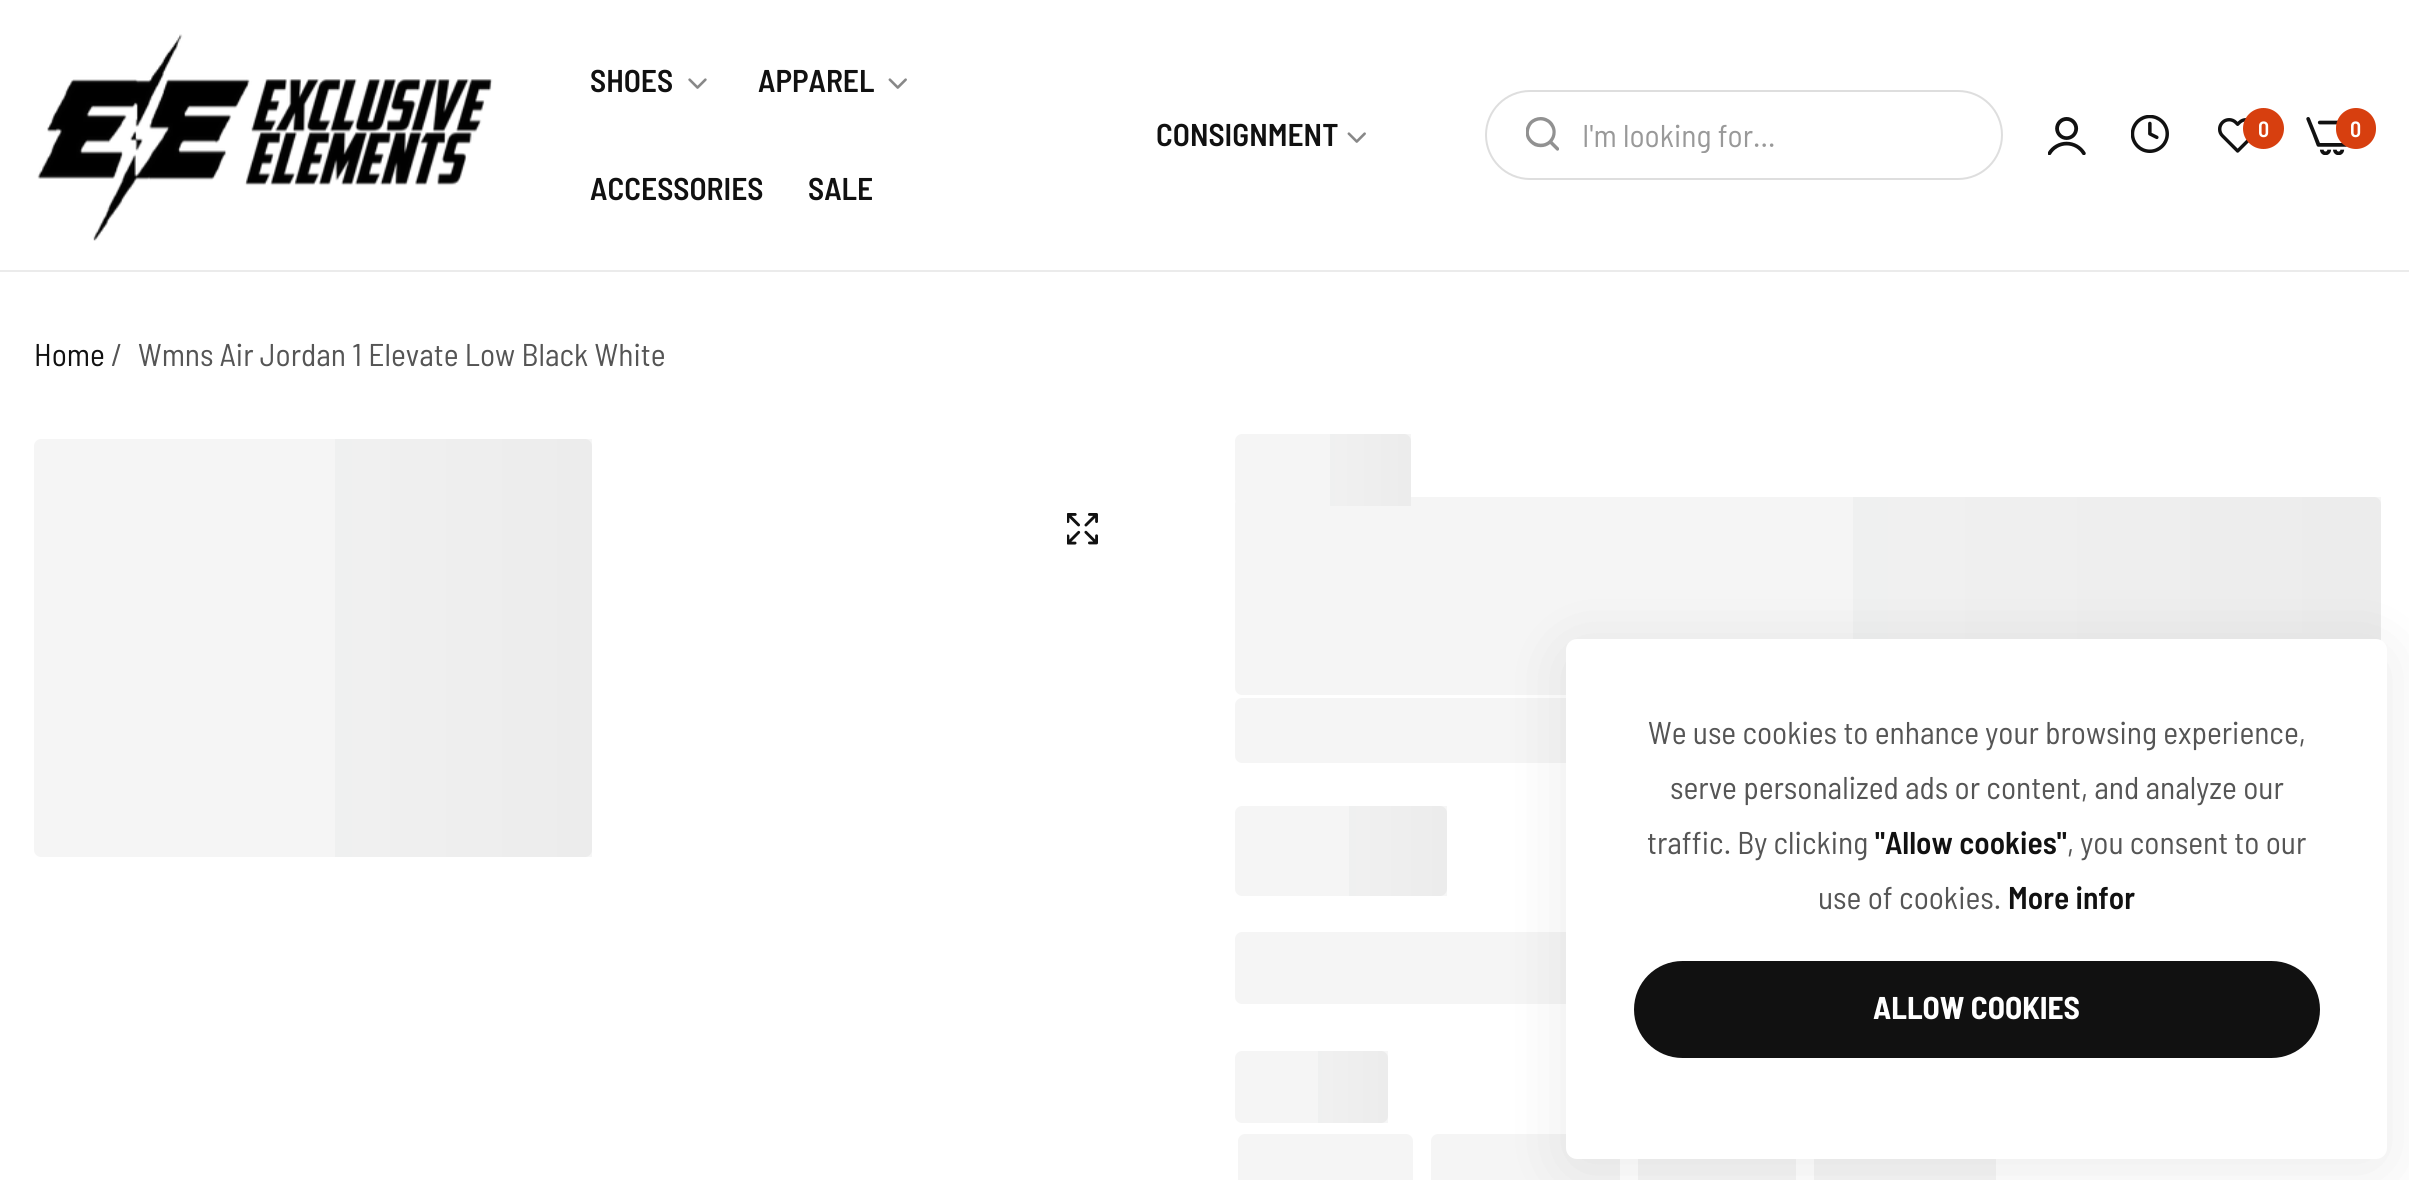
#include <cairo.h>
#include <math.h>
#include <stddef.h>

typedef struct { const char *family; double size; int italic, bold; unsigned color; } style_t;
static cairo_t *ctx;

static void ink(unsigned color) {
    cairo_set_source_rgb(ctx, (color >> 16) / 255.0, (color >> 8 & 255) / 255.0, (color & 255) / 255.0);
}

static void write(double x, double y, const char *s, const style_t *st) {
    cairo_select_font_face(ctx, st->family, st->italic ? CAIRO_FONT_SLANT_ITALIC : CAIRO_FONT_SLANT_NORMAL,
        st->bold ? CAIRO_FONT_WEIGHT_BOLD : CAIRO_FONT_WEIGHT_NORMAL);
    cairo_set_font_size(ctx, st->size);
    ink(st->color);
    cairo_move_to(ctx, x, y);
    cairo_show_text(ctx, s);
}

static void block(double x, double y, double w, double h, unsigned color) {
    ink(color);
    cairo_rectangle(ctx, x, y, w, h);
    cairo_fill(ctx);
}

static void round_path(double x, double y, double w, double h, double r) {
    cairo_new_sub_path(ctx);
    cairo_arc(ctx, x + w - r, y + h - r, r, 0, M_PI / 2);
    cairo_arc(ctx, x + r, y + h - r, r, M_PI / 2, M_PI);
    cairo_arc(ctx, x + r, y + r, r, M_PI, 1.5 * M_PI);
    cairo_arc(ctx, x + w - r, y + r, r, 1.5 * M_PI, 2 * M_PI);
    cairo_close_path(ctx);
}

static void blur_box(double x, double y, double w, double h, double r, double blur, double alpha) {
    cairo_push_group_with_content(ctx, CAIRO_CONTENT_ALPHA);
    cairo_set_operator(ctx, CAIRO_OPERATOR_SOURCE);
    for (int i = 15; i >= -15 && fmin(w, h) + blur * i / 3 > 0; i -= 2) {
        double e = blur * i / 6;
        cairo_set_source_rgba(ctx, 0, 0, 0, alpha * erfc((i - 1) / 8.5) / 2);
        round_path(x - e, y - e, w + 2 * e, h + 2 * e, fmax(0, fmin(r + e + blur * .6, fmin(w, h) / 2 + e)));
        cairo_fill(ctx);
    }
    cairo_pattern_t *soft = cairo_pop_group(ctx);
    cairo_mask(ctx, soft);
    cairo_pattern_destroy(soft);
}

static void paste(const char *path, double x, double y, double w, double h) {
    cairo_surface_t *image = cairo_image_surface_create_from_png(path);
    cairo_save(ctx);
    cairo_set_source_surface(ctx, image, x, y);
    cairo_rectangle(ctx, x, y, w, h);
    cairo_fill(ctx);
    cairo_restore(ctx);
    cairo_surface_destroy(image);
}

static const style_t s1 = {"Barlow Semi Condensed SemiBold", 31.5, 0, 0, 0x111111};
static const style_t s2 = {"Barlow Semi Condensed", 31.5, 0, 0, 0x999999};
static const style_t s3 = {"Barlow Semi Condensed SemiBold", 22, 0, 0, 0xffffff};
static const style_t s4 = {"Barlow Semi Condensed", 31.5, 0, 0, 0x111111};
static const style_t s5 = {"Barlow Semi Condensed", 31.5, 0, 0, 0x555555};
static const style_t s6 = {"Barlow Semi Condensed", 31.5, 0, 1, 0xffffff};

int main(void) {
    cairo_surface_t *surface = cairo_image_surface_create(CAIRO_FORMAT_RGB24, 2409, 1180);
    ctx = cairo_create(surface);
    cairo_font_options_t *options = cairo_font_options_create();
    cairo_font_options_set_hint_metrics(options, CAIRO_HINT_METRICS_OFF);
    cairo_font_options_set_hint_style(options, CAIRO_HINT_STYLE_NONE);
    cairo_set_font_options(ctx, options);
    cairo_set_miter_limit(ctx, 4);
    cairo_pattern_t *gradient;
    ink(0xffffff);
    cairo_paint(ctx);
    block(0, 270, 2409, 2, 0xebebeb);
    paste("pic1.png", 37, 34, 456, 207);
    write(590, 92, "SHOES", &s1);
    paste("pic2.png", 688, 78, 19, 11);
    write(758, 92, "APPAREL", &s1);
    paste("pic3.png", 888, 78, 19, 11);
    write(590, 200, "ACCESSORIES", &s1);
    write(808, 200, "SALE", &s1);
    write(1156, 146, "CONSIGNMENT", &s1);
    paste("pic3.png", 1347, 132, 19, 11);
    round_path(1486, 91, 516, 88, 44);
    ink(0xdedede);
    cairo_stroke(ctx);
    paste("pic4.png", 1526, 117, 33, 34);
    cairo_save(ctx);
    cairo_rectangle(ctx, 1582, 115, 373, 38);
    cairo_clip(ctx);
    write(1582, 147, "I'm looking for…", &s2);
    cairo_restore(ctx);
    paste("pic5.png", 2048, 117, 38, 38);
    paste("pic6.png", 2131, 115, 38, 38);
    paste("pic7.png", 2218, 118, 31, 35);
    ink(0xd73f0f);
    cairo_arc(ctx, 2263.5, 128.5, 20.5, 0, 2 * M_PI);
    cairo_fill(ctx);
    write(2258, 137, "0", &s3);
    paste("pic8.png", 2306, 117, 41, 38);
    ink(0xd73f0f);
    round_path(2336, 108, 40, 41, 20);
    cairo_fill(ctx);
    write(2350, 137, "0", &s3);
    write(34, 366, "Home", &s4);
    write(111, 366, "/", &s5);
    write(138, 366, "Wmns Air Jordan 1 Elevate Low Black White", &s5);
    cairo_save(ctx);
    round_path(34, 439, 558, 418, 7);
    cairo_clip(ctx);
    ink(0xf5f5f5);
    round_path(29, 434, 567, 428, 7);
    cairo_fill(ctx);
    cairo_restore(ctx);
    gradient = cairo_pattern_create_linear(29, 648, 1163, 648);
    cairo_pattern_add_color_stop_rgba(gradient, 0, 0.086, 0.094, 0.137, 0);
    cairo_pattern_add_color_stop_rgba(gradient, 0.5, 0.086, 0.094, 0.137, 0.04);
    cairo_pattern_add_color_stop_rgba(gradient, 1, 0.086, 0.094, 0.137, 0);
    cairo_set_source(ctx, gradient);
    cairo_pattern_destroy(gradient);
    cairo_rectangle(ctx, 335, 439, 257, 418);
    cairo_fill(ctx);
    paste("pic9.png", 1067, 513, 31, 32);
    ink(0xf5f5f5);
    round_path(1235, 434, 176, 72, 7);
    cairo_fill(ctx);
    round_path(1235, 497, 1146, 198, 7);
    cairo_fill(ctx);
    gradient = cairo_pattern_create_linear(1235, 470, 1586, 470);
    cairo_pattern_add_color_stop_rgba(gradient, 0, 0.086, 0.094, 0.137, 0);
    cairo_pattern_add_color_stop_rgba(gradient, 0.5, 0.086, 0.094, 0.137, 0.04);
    cairo_pattern_add_color_stop_rgba(gradient, 1, 0.086, 0.094, 0.137, 0);
    cairo_set_source(ctx, gradient);
    cairo_pattern_destroy(gradient);
    cairo_rectangle(ctx, 1330, 434, 81, 72);
    cairo_fill(ctx);
    gradient = cairo_pattern_create_linear(1235, 596, 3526, 596);
    cairo_pattern_add_color_stop_rgba(gradient, 0, 0.086, 0.094, 0.137, 0);
    cairo_pattern_add_color_stop_rgba(gradient, 0.5, 0.086, 0.094, 0.137, 0.04);
    cairo_pattern_add_color_stop_rgba(gradient, 1, 0.086, 0.094, 0.137, 0);
    cairo_set_source(ctx, gradient);
    cairo_pattern_destroy(gradient);
    cairo_rectangle(ctx, 1853, 497, 528, 144);
    cairo_fill(ctx);
    ink(0xf5f5f5);
    round_path(1235, 698, 1146, 65, 7);
    cairo_fill(ctx);
    round_path(1235, 806, 212, 90, 7);
    cairo_fill(ctx);
    gradient = cairo_pattern_create_linear(1235, 851, 1658, 851);
    cairo_pattern_add_color_stop_rgba(gradient, 0, 0.086, 0.094, 0.137, 0);
    cairo_pattern_add_color_stop_rgba(gradient, 0.5, 0.086, 0.094, 0.137, 0.04);
    cairo_pattern_add_color_stop_rgba(gradient, 1, 0.086, 0.094, 0.137, 0);
    cairo_set_source(ctx, gradient);
    cairo_pattern_destroy(gradient);
    cairo_rectangle(ctx, 1349, 806, 98, 90);
    cairo_fill(ctx);
    ink(0xf5f5f5);
    round_path(1235, 932, 1146, 72, 7);
    cairo_fill(ctx);
    round_path(1235, 1051, 153, 72, 7);
    cairo_fill(ctx);
    gradient = cairo_pattern_create_linear(1235, 1087, 1541, 1087);
    cairo_pattern_add_color_stop_rgba(gradient, 0, 0.086, 0.094, 0.137, 0);
    cairo_pattern_add_color_stop_rgba(gradient, 0.5, 0.086, 0.094, 0.137, 0.04);
    cairo_pattern_add_color_stop_rgba(gradient, 1, 0.086, 0.094, 0.137, 0);
    cairo_set_source(ctx, gradient);
    cairo_pattern_destroy(gradient);
    cairo_rectangle(ctx, 1318, 1051, 70, 72);
    cairo_fill(ctx);
    ink(0xf5f5f5);
    round_path(1238, 1134, 175, 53, 7);
    cairo_fill(ctx);
    round_path(1431, 1134, 189, 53, 7);
    cairo_fill(ctx);
    block(1638, 1159, 158, 21, 0xf5f5f5);
    block(1814, 1159, 182, 21, 0xf5f5f5);
    ink(0x000000);
    blur_box(1566, 650, 821, 520, 11, 34, 0.08);
    ink(0xffffff);
    round_path(1566, 639, 821, 520, 11);
    cairo_fill(ctx);
    write(1648, 744, "We use cookies to enhance your browsing experience,", &s5);
    write(1670, 799, "serve personalized ads or content, and analyze our", &s5);
    write(1647, 854, "traffic. By clicking", &s5);
    write(1875, 854, "\"Allow cookies\"", &s1);
    write(2067, 854, ", you consent to our", &s5);
    write(1818, 909, "use of cookies.", &s5);
    write(2008, 909, "More infor", &s1);
    round_path(1635, 962, 684, 95, 47.5);
    cairo_fill_preserve(ctx);
    cairo_stroke(ctx);
    write(1873, 1019, "ALLOW COOKIES", &s6);
    cairo_surface_write_to_png(surface, "screenshot.png");
    cairo_font_options_destroy(options);
    cairo_destroy(ctx);
    cairo_surface_destroy(surface);
    return 0;
}
